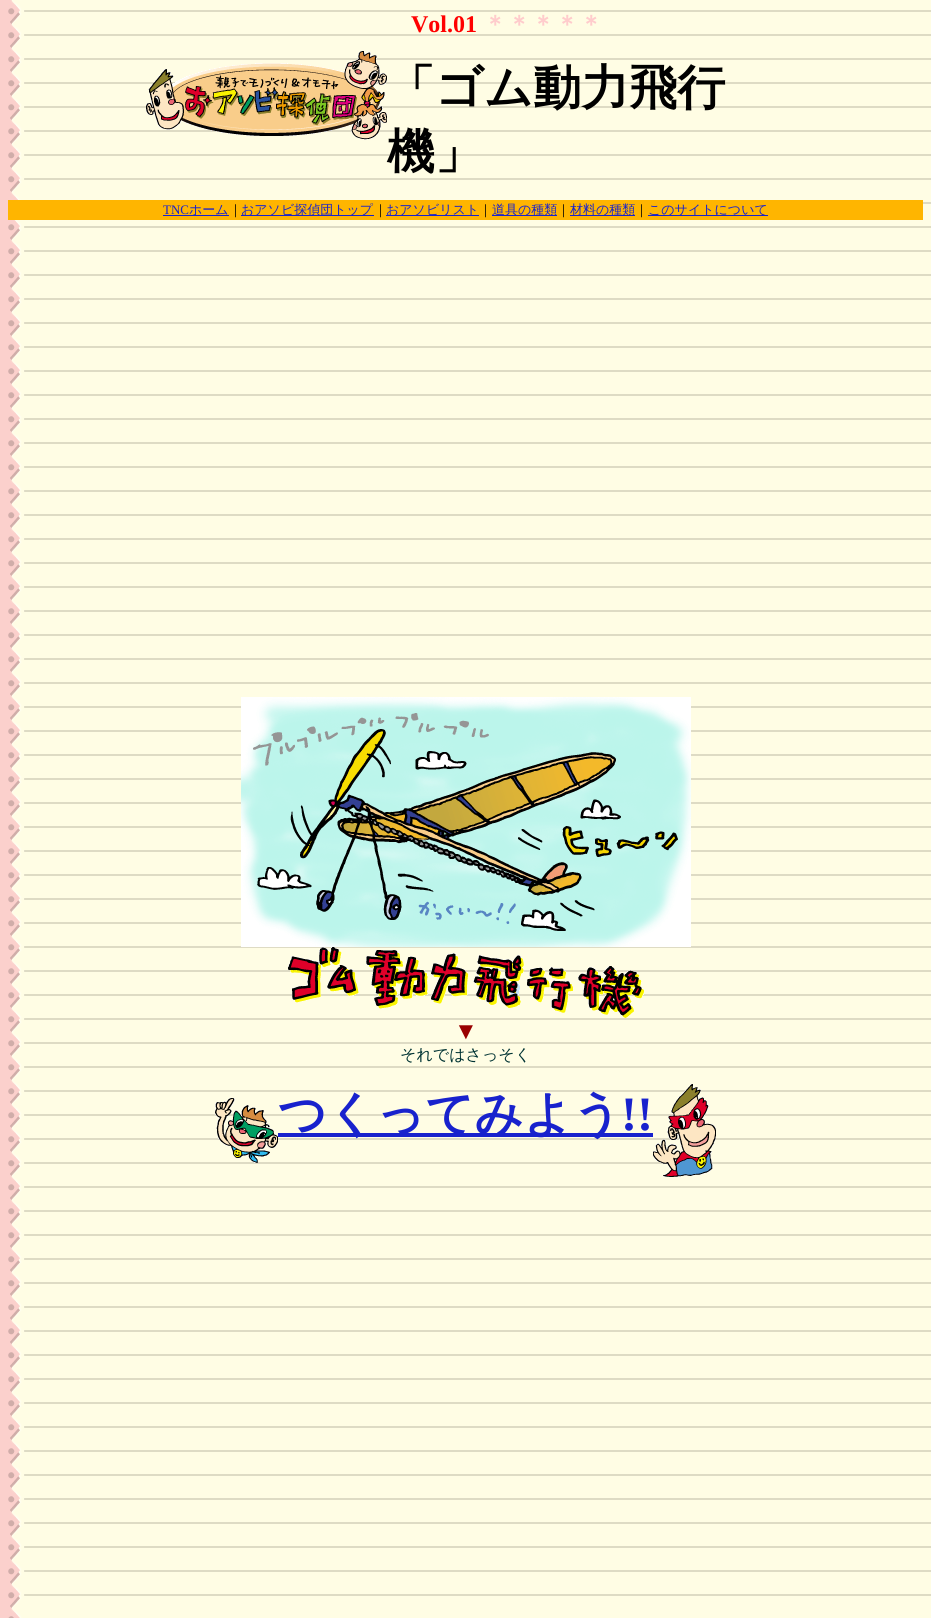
#include <cairo.h>
#include <math.h>
#include <stddef.h>

typedef struct { const char *family; double size; int italic, bold; unsigned color; } style_t;
static cairo_t *ctx;

static void ink(unsigned color) {
    cairo_set_source_rgb(ctx, (color >> 16) / 255.0, (color >> 8 & 255) / 255.0, (color & 255) / 255.0);
}

static void write(double x, double y, const char *s, const style_t *st) {
    cairo_select_font_face(ctx, st->family, st->italic ? CAIRO_FONT_SLANT_ITALIC : CAIRO_FONT_SLANT_NORMAL,
        st->bold ? CAIRO_FONT_WEIGHT_BOLD : CAIRO_FONT_WEIGHT_NORMAL);
    cairo_set_font_size(ctx, st->size);
    ink(st->color);
    cairo_move_to(ctx, x, y);
    cairo_show_text(ctx, s);
}

static void block(double x, double y, double w, double h, unsigned color) {
    ink(color);
    cairo_rectangle(ctx, x, y, w, h);
    cairo_fill(ctx);
}

static void paste(const char *path, double x, double y, double w, double h) {
    cairo_surface_t *image = cairo_image_surface_create_from_png(path);
    cairo_save(ctx);
    cairo_set_source_surface(ctx, image, x, y);
    cairo_rectangle(ctx, x, y, w, h);
    cairo_fill(ctx);
    cairo_restore(ctx);
    cairo_surface_destroy(image);
}

static const style_t s1 = {"Liberation Serif", 24, 0, 1, 0xff0000};
static const style_t s2 = {"WenQuanYi Zen Hei", 24, 0, 1, 0xffcccc};
static const style_t s3 = {"WenQuanYi Zen Hei", 48, 0, 1, 0x000000};
static const style_t s4 = {"Liberation Serif", 13, 0, 0, 0x1822cd};
static const style_t s5 = {"WenQuanYi Zen Hei Medium", 13, 0, 0, 0x1822cd};
static const style_t s6 = {"WenQuanYi Zen Hei Medium", 13, 0, 0, 0x000000};
static const style_t s7 = {"Liberation Serif", 24, 0, 0, 0x990000};
static const style_t s8 = {"WenQuanYi Zen Hei Medium", 16, 0, 0, 0x003333};
static const style_t s9 = {"WenQuanYi Zen Hei", 48, 0, 1, 0x1822cd};
static const style_t s10 = {"Liberation Serif", 48, 0, 1, 0x1822cd};

int main(void) {
    cairo_surface_t *surface = cairo_image_surface_create(CAIRO_FORMAT_RGB24, 931, 1618);
    ctx = cairo_create(surface);
    cairo_font_options_t *options = cairo_font_options_create();
    cairo_font_options_set_hint_metrics(options, CAIRO_HINT_METRICS_OFF);
    cairo_font_options_set_hint_style(options, CAIRO_HINT_STYLE_NONE);
    cairo_set_font_options(ctx, options);
    cairo_set_miter_limit(ctx, 4);
    ink(0xffffff);
    cairo_paint(ctx);
    paste("pic1.png", 0, 0, 931, 1618);
    paste("pic2.png", 146, 51, 241, 89);
    write(411, 32, "Vol.01", &s1);
    write(483, 32, "＊＊＊＊＊", &s2);
    write(387, 104, "「ゴム動力飛行", &s3);
    write(387, 168, "機」", &s3);
    block(8, 200, 915, 20, 0xffb500);
    write(163, 214, "TNC", &s4);
    block(163, 215, 66, 1, 0x1822cd);
    write(189, 214, "ホーム", &s5);
    write(229, 214, "｜", &s6);
    block(241, 215, 133, 1, 0x1822cd);
    write(241, 214, "おアソビ探偵団トップ", &s5);
    write(374, 214, "｜", &s6);
    block(386, 215, 93, 1, 0x1822cd);
    write(386, 214, "おアソビリスト", &s5);
    write(479, 214, "｜", &s6);
    block(492, 215, 65, 1, 0x1822cd);
    write(492, 214, "道具の種類", &s5);
    write(557, 214, "｜", &s6);
    block(570, 215, 65, 1, 0x1822cd);
    write(570, 214, "材料の種類", &s5);
    write(635, 214, "｜", &s6);
    block(648, 215, 120, 1, 0x1822cd);
    write(648, 214, "このサイトについて", &s5);
    paste("pic3.png", 241, 697, 450, 250);
    paste("pic4.png", 288, 947, 356, 71);
    write(454, 1039, "▼", &s7);
    write(400, 1060, "それではさっそく", &s8);
    paste("pic5.png", 215, 1098, 63, 65);
    block(278, 1133, 375, 4, 0x1822cd);
    write(278, 1130, "つくってみよう", &s9);
    write(621, 1130, "!!", &s10);
    paste("pic6.png", 653, 1084, 63, 93);
    cairo_surface_write_to_png(surface, "screenshot.png");
    cairo_font_options_destroy(options);
    cairo_destroy(ctx);
    cairo_surface_destroy(surface);
    return 0;
}
